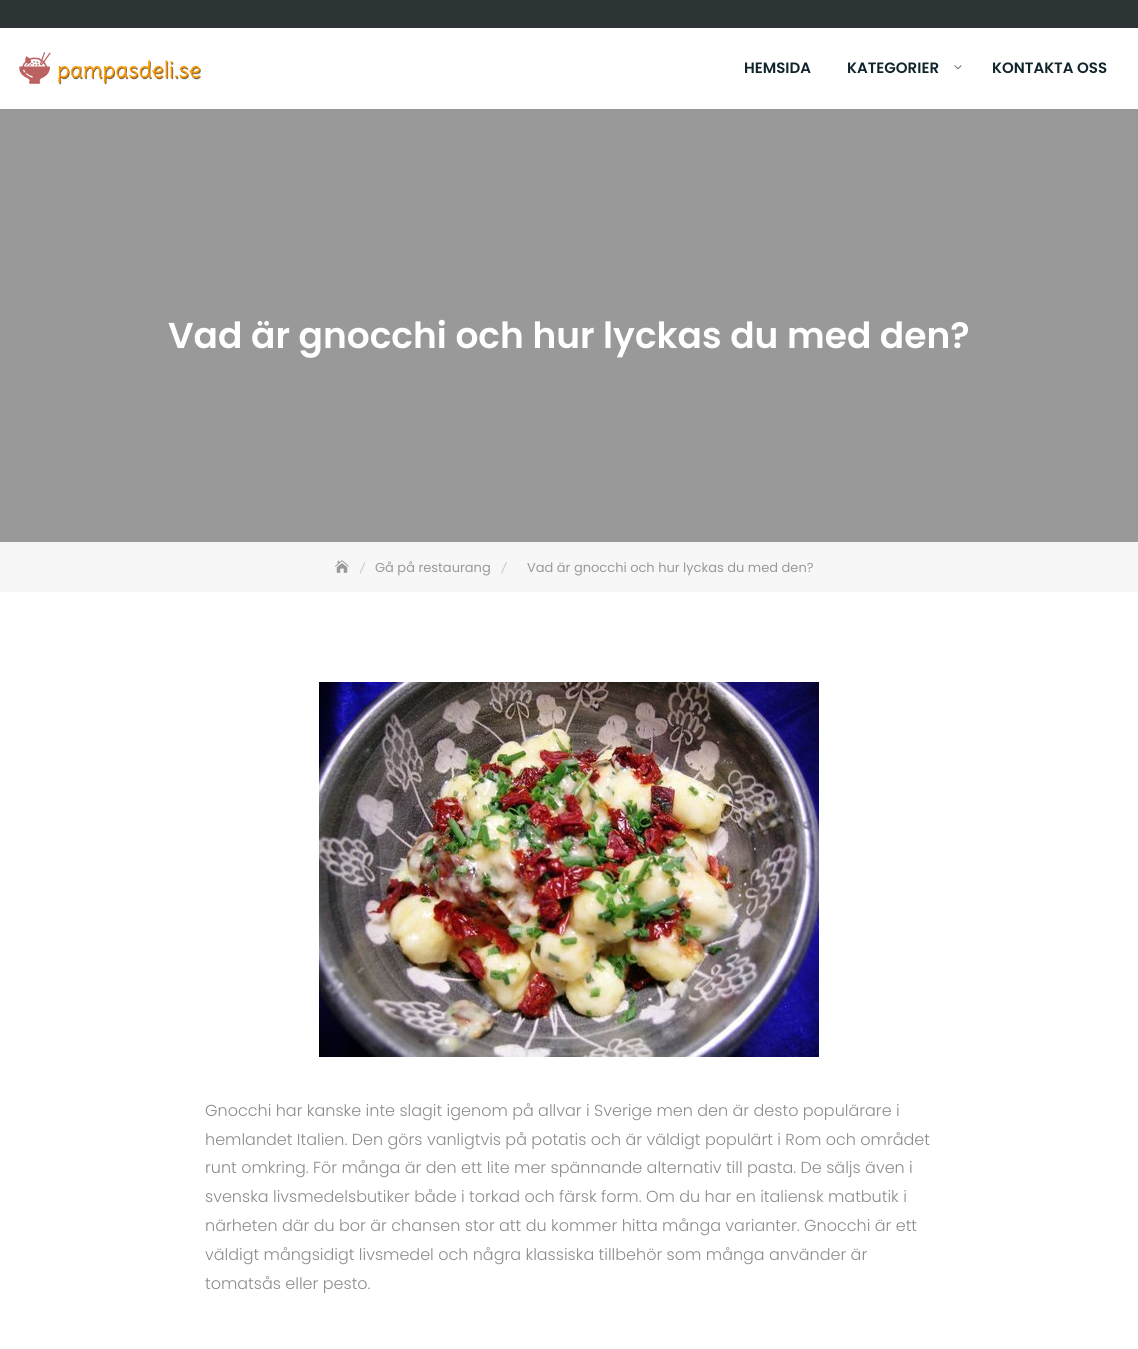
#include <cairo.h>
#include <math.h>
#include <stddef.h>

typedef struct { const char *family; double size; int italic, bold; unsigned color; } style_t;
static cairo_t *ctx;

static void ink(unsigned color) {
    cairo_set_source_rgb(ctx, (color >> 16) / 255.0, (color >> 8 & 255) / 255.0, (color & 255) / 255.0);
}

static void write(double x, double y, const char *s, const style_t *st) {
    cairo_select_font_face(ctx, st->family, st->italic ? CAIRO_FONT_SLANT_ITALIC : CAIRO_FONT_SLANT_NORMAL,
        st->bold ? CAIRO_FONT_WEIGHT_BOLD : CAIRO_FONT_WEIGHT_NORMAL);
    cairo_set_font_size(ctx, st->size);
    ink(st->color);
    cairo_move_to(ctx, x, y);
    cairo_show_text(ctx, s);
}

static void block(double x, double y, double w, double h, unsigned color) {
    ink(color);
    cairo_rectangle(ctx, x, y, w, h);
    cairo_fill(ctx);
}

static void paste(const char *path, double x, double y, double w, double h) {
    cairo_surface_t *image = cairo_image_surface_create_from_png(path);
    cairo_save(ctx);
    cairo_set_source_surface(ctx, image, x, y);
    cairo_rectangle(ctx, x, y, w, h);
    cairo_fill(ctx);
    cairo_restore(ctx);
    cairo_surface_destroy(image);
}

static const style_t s1 = {"Poppins SemiBold", 15, 0, 0, 0x10242b};
static const style_t s2 = {"Poppins SemiBold", 36, 0, 0, 0xffffff};
static const style_t s3 = {"Poppins", 13, 0, 0, 0x999999};
static const style_t s4 = {"Poppins Light", 16, 0, 0, 0x8c8c8c};

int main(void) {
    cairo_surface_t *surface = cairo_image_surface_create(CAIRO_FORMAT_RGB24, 1138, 1349);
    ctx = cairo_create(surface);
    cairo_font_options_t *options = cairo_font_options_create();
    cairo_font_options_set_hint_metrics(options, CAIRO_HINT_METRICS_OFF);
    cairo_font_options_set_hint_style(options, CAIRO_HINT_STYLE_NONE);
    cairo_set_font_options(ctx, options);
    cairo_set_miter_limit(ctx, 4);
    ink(0xffffff);
    cairo_paint(ctx);
    block(0, 0, 1138, 28, 0x2d3436);
    paste("pic1.png", 19, 52, 182, 33);
    write(744, 73, "HEMSIDA", &s1);
    write(847, 73, "KATEGORIER", &s1);
    paste("pic2.png", 954, 65, 8, 5);
    write(992, 73, "KONTAKTA OSS", &s1);
    block(0, 109, 1138, 433, 0x999999);
    write(168, 348, "Vad är gnocchi och hur lyckas du med den?", &s2);
    block(0, 542, 1138, 50, 0xf7f7f7);
    paste("pic3.png", 335, 560, 14, 13);
    ink(0xcccccc);
    cairo_new_path(ctx);
    cairo_move_to(ctx, 364.5, 562);
    cairo_line_to(ctx, 365.5, 562.5);
    cairo_line_to(ctx, 360.5, 573.5);
    cairo_line_to(ctx, 359.5, 573);
    cairo_close_path(ctx);
    cairo_fill(ctx);
    write(375, 572, "Gå på restaurang", &s3);
    ink(0xcccccc);
    cairo_new_path(ctx);
    cairo_move_to(ctx, 506, 562);
    cairo_line_to(ctx, 507, 562.5);
    cairo_line_to(ctx, 502, 573.5);
    cairo_line_to(ctx, 501, 573);
    cairo_close_path(ctx);
    cairo_fill(ctx);
    write(527, 572, "Vad är gnocchi och hur lyckas du med den?", &s3);
    paste("pic4.png", 319, 682, 500, 375);
    write(205, 1116, "Gnocchi har kanske inte slagit igenom på allvar i Sverige men den är desto populärare i", &s4);
    write(205, 1145, "hemlandet Italien. Den görs vanligtvis på potatis och är väldigt populärt i Rom och området", &s4);
    write(205, 1173, "runt omkring. För många är den ett lite mer spännande alternativ till pasta. De säljs även i", &s4);
    write(205, 1202, "svenska livsmedelsbutiker både i torkad och färsk form. Om du har en italiensk matbutik i", &s4);
    write(205, 1231, "närheten där du bor är chansen stor att du kommer hitta många varianter. Gnocchi är ett", &s4);
    write(205, 1260, "väldigt mångsidigt livsmedel och några klassiska tillbehör som många använder är", &s4);
    write(205, 1289, "tomatsås eller pesto.", &s4);
    cairo_surface_write_to_png(surface, "screenshot.png");
    cairo_font_options_destroy(options);
    cairo_destroy(ctx);
    cairo_surface_destroy(surface);
    return 0;
}
